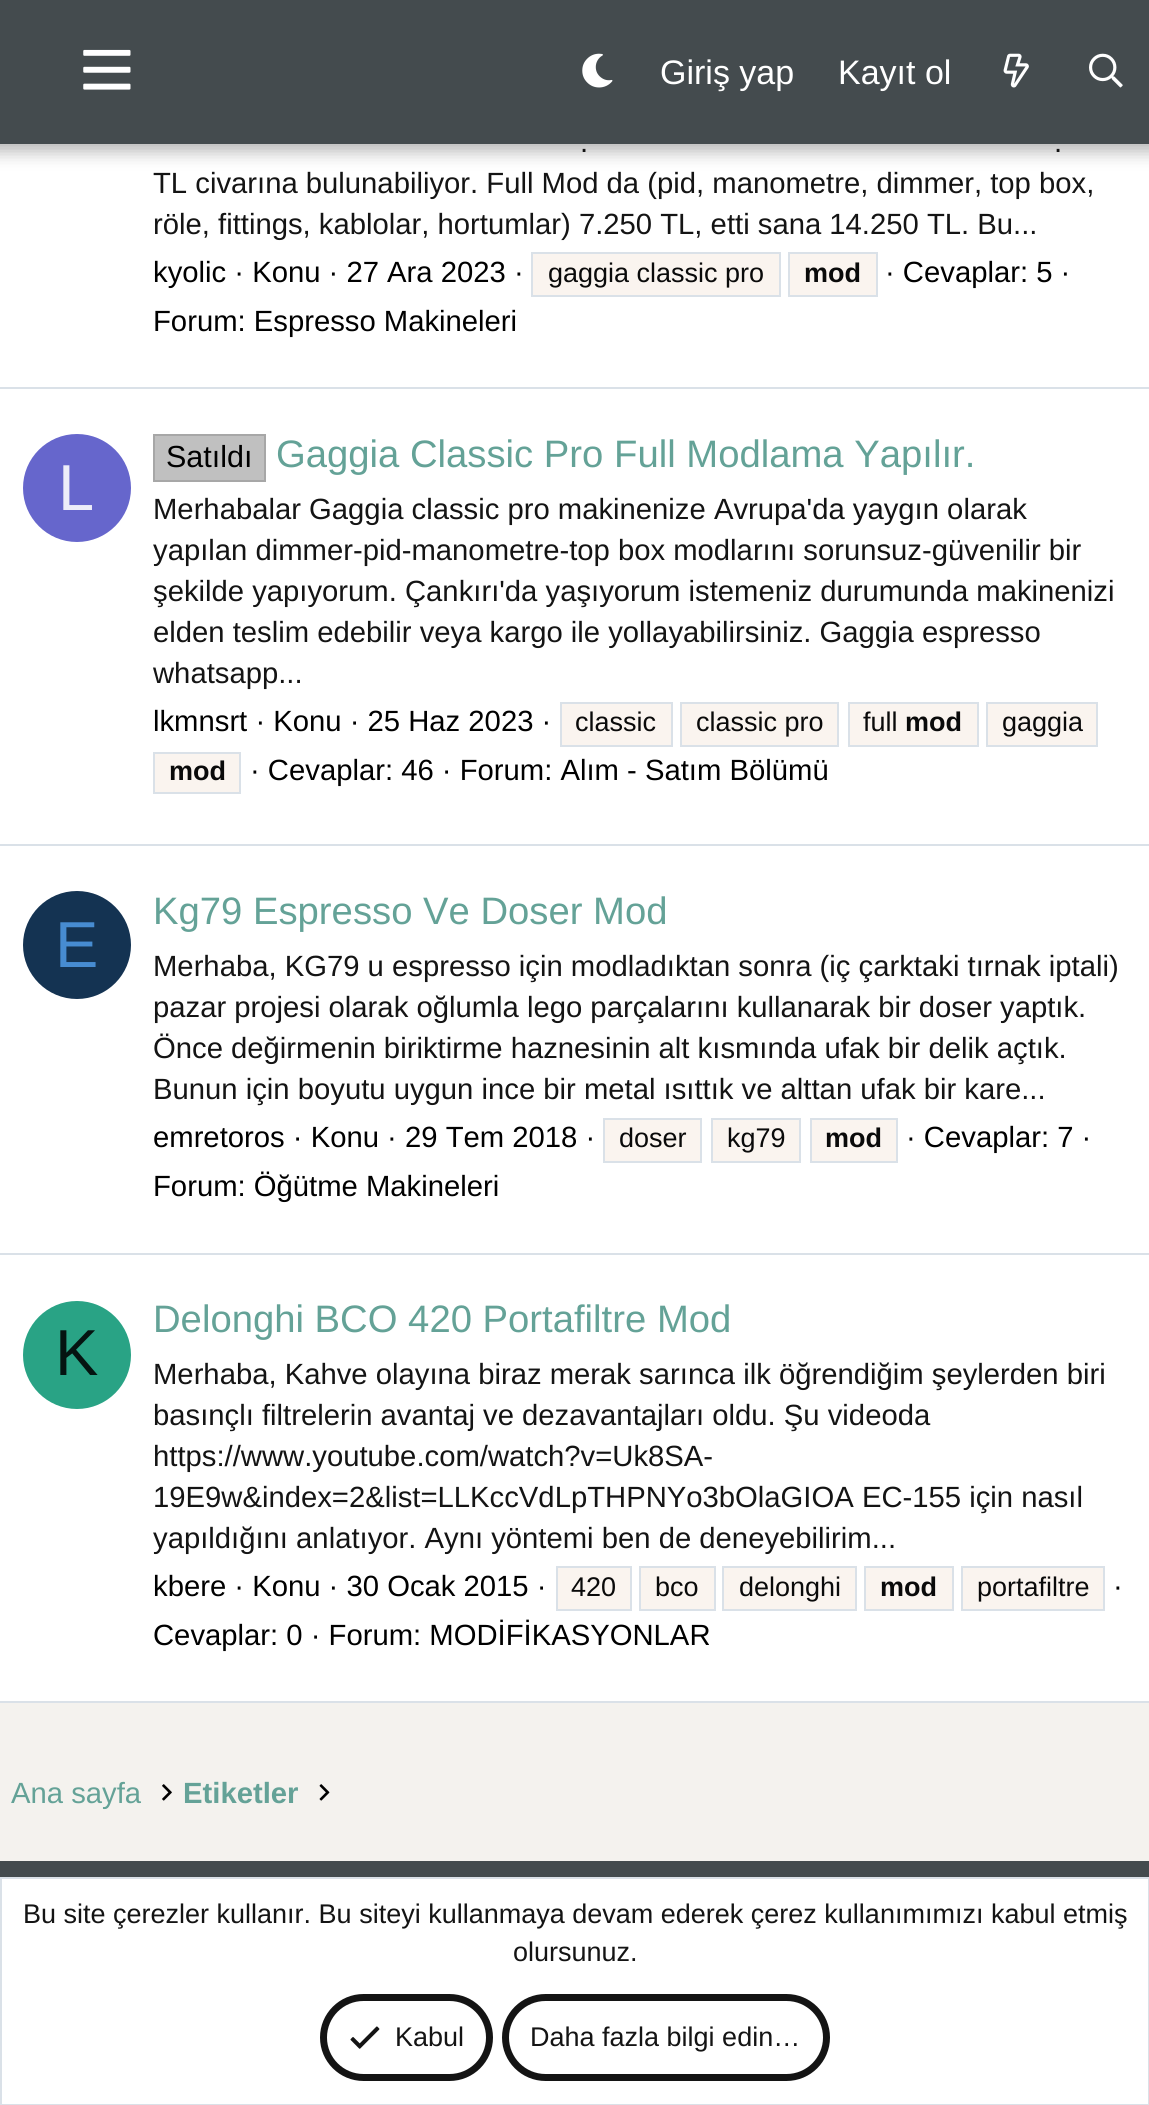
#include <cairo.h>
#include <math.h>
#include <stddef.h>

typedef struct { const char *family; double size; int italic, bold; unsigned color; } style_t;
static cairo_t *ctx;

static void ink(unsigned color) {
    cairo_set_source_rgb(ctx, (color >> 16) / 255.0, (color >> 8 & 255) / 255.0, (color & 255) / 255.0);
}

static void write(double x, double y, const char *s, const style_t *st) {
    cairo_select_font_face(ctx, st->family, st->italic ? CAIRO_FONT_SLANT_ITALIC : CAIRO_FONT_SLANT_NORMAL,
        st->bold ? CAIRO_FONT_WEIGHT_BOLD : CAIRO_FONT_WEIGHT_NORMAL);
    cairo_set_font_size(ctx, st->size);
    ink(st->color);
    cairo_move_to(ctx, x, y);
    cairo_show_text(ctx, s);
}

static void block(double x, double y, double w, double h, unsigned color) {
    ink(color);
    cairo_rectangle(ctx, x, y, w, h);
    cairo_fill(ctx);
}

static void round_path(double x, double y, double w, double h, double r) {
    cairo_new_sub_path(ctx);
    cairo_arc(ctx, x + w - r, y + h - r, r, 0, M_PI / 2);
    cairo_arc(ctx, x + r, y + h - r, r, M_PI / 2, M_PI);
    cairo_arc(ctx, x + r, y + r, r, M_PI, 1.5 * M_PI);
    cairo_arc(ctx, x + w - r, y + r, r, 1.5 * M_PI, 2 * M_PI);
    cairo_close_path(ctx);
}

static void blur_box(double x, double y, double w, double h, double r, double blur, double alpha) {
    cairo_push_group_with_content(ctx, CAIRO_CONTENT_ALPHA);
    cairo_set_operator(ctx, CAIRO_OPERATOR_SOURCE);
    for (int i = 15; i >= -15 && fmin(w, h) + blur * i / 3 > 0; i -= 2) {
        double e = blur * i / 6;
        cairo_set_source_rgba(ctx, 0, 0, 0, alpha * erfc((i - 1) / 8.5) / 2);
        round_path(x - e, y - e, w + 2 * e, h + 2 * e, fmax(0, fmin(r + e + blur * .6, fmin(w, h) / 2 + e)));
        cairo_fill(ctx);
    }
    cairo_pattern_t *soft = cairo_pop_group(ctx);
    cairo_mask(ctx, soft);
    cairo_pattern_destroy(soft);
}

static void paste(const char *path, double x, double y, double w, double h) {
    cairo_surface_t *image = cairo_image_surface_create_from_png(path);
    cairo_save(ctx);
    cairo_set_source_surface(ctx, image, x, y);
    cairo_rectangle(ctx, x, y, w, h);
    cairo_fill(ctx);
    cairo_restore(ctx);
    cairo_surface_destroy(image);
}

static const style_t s1 = {"Liberation Sans", 34, 0, 0, 0xffffff};
static const style_t s2 = {"Liberation Sans", 29.25, 0, 0, 0x141414};
static const style_t s3 = {"Liberation Sans", 29.25, 0, 0, 0x000000};
static const style_t s4 = {"Liberation Sans", 27, 0, 0, 0x0a0a0a};
static const style_t s5 = {"Liberation Sans", 27, 0, 1, 0x0a0a0a};
static const style_t s6 = {"Liberation Sans", 65, 0, 0, 0xececf9};
static const style_t s7 = {"Liberation Sans", 30.5, 0, 0, 0x000000};
static const style_t s8 = {"Liberation Sans", 38.25, 0, 0, 0x64a297};
static const style_t s9 = {"Liberation Sans", 65, 0, 0, 0x478cd1};
static const style_t s10 = {"Liberation Sans", 65, 0, 0, 0x051411};
static const style_t s11 = {"Liberation Sans", 29.25, 0, 0, 0x64a297};
static const style_t s12 = {"Liberation Sans", 29.25, 0, 1, 0x64a297};
static const style_t s13 = {"Liberation Sans", 27, 0, 0, 0x141414};

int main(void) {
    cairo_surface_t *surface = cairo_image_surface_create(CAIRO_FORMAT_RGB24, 1149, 2105);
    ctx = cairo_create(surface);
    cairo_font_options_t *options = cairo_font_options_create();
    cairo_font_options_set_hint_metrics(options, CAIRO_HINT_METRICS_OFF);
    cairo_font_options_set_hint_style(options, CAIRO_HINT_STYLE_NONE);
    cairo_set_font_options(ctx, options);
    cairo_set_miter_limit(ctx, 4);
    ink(0xf4f2ee);
    cairo_paint(ctx);
    block(0, 144, 1149, 1557, 0xffffff);
    ink(0x000000);
    blur_box(-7, -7, 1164, 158, 0, 9, 0.3);
    block(0, 0, 1149, 144, 0x444b4e);
    paste("pic1.png", 83, 49, 48, 41);
    paste("pic2.png", 582, 53, 31, 35);
    write(660, 84, "Giriş yap", &s1);
    write(838, 84, "Kayıt ol", &s1);
    paste("pic3.png", 1003, 53, 26, 35);
    paste("pic4.png", 1089, 53, 34, 35);
    block(0, 1701, 1149, 2, 0xdae1e8);
    write(580, 152, ".", &s2);
    write(1054, 152, ".", &s2);
    write(153, 193, "TL civarına bulunabiliyor. Full Mod da (pid, manometre, dimmer, top box,", &s2);
    write(153, 234, "röle, fittings, kablolar, hortumlar) 7.250 TL, etti sana 14.250 TL. Bu...", &s2);
    write(153, 282, "kyolic · Konu · 27 Ara 2023 ·", &s3);
    ink(0xfaf4ef);
    cairo_rectangle(ctx, 532, 253, 248, 43);
    cairo_fill_preserve(ctx);
    ink(0xdae1e8);
    cairo_stroke(ctx);
    write(548, 282, "gaggia classic pro", &s4);
    ink(0xfaf4ef);
    cairo_rectangle(ctx, 789, 253, 88, 43);
    cairo_fill_preserve(ctx);
    ink(0xdae1e8);
    cairo_stroke(ctx);
    write(804, 282, "mod", &s5);
    write(885, 282, "· Cevaplar: 5 ·", &s3);
    write(153, 331, "Forum: Espresso Makineleri", &s3);
    block(0, 387, 1149, 2, 0xdae1e8);
    ink(0x6666cc);
    cairo_new_path(ctx);
    cairo_arc(ctx, 77, 488, 54, 0, 2 * M_PI);
    cairo_fill(ctx);
    write(58, 510, "L", &s6);
    ink(0xc0c0c0);
    cairo_rectangle(ctx, 154, 435, 111, 46);
    cairo_fill_preserve(ctx);
    ink(0xa7a7a7);
    cairo_stroke(ctx);
    write(166, 467, "Satıldı", &s7);
    write(276, 467, "Gaggia Classic Pro Full Modlama Yapılır.", &s8);
    write(153, 519, "Merhabalar Gaggia classic pro makinenize Avrupa'da yaygın olarak", &s2);
    write(153, 560, "yapılan dimmer-pid-manometre-top box modlarını sorunsuz-güvenilir bir", &s2);
    write(153, 601, "şekilde yapıyorum. Çankırı'da yaşıyorum istemeniz durumunda makinenizi", &s2);
    write(153, 642, "elden teslim edebilir veya kargo ile yollayabilirsiniz. Gaggia espresso", &s2);
    write(153, 683, "whatsapp...", &s2);
    write(153, 731, "lkmnsrt · Konu · 25 Haz 2023 ·", &s3);
    ink(0xfaf4ef);
    cairo_rectangle(ctx, 561, 703, 111, 43);
    cairo_fill_preserve(ctx);
    ink(0xdae1e8);
    cairo_stroke(ctx);
    write(575, 731, "classic", &s4);
    ink(0xfaf4ef);
    cairo_rectangle(ctx, 681, 703, 157, 43);
    cairo_fill_preserve(ctx);
    ink(0xdae1e8);
    cairo_stroke(ctx);
    write(696, 731, "classic pro", &s4);
    ink(0xfaf4ef);
    cairo_rectangle(ctx, 849, 703, 129, 43);
    cairo_fill_preserve(ctx);
    ink(0xdae1e8);
    cairo_stroke(ctx);
    write(863, 731, "full", &s4);
    write(905, 731, "mod", &s5);
    ink(0xfaf4ef);
    cairo_rectangle(ctx, 987, 703, 110, 43);
    cairo_fill_preserve(ctx);
    ink(0xdae1e8);
    cairo_stroke(ctx);
    write(1002, 731, "gaggia", &s4);
    ink(0xfaf4ef);
    cairo_rectangle(ctx, 154, 753, 86, 40);
    cairo_fill_preserve(ctx);
    ink(0xdae1e8);
    cairo_stroke(ctx);
    write(169, 780, "mod", &s5);
    write(250, 780, "· Cevaplar: 46 · Forum: Alım - Satım Bölümü", &s3);
    block(0, 844, 1149, 2, 0xdae1e8);
    ink(0x143352);
    cairo_new_path(ctx);
    cairo_arc(ctx, 77, 945, 54, 0, 2 * M_PI);
    cairo_fill(ctx);
    write(55, 967, "E", &s9);
    write(153, 924, "Kg79 Espresso Ve Doser Mod", &s8);
    write(153, 976, "Merhaba, KG79 u espresso için modladıktan sonra (iç çarktaki tırnak iptali)", &s2);
    write(153, 1017, "pazar projesi olarak oğlumla lego parçalarını kullanarak bir doser yaptık.", &s2);
    write(153, 1058, "Önce değirmenin biriktirme haznesinin alt kısmında ufak bir delik açtık.", &s2);
    write(153, 1099, "Bunun için boyutu uygun ince bir metal ısıttık ve alttan ufak bir kare...", &s2);
    write(153, 1147, "emretoros · Konu · 29 Tem 2018 ·", &s3);
    ink(0xfaf4ef);
    cairo_rectangle(ctx, 604, 1119, 97, 43);
    cairo_fill_preserve(ctx);
    ink(0xdae1e8);
    cairo_stroke(ctx);
    write(619, 1147, "doser", &s4);
    ink(0xfaf4ef);
    cairo_rectangle(ctx, 712, 1119, 88, 43);
    cairo_fill_preserve(ctx);
    ink(0xdae1e8);
    cairo_stroke(ctx);
    write(727, 1147, "kg79", &s4);
    ink(0xfaf4ef);
    cairo_rectangle(ctx, 811, 1119, 86, 43);
    cairo_fill_preserve(ctx);
    ink(0xdae1e8);
    cairo_stroke(ctx);
    write(825, 1147, "mod", &s5);
    write(906, 1147, "· Cevaplar: 7 ·", &s3);
    write(153, 1196, "Forum: Öğütme Makineleri", &s3);
    block(0, 1253, 1149, 2, 0xdae1e8);
    ink(0x29a385);
    cairo_new_path(ctx);
    cairo_arc(ctx, 77, 1355, 54, 0, 2 * M_PI);
    cairo_fill(ctx);
    write(55, 1375, "K", &s10);
    write(153, 1332, "Delonghi BCO 420 Portafiltre Mod", &s8);
    write(153, 1384, "Merhaba, Kahve olayına biraz merak sarınca ilk öğrendiğim şeylerden biri", &s2);
    write(153, 1425, "basınçlı filtrelerin avantaj ve dezavantajları oldu. Şu videoda", &s2);
    write(153, 1466, "https://www.youtube.com/watch?v=Uk8SA-", &s2);
    write(153, 1507, "19E9w&index=2&list=LLKccVdLpTHPNYo3bOlaGIOA EC-155 için nasıl", &s2);
    write(153, 1548, "yapıldığını anlatıyor. Aynı yöntemi ben de deneyebilirim...", &s2);
    write(153, 1596, "kbere · Konu · 30 Ocak 2015 ·", &s3);
    ink(0xfaf4ef);
    cairo_rectangle(ctx, 557, 1567, 74, 43);
    cairo_fill_preserve(ctx);
    ink(0xdae1e8);
    cairo_stroke(ctx);
    write(571, 1596, "420", &s4);
    ink(0xfaf4ef);
    cairo_rectangle(ctx, 640, 1567, 75, 43);
    cairo_fill_preserve(ctx);
    ink(0xdae1e8);
    cairo_stroke(ctx);
    write(655, 1596, "bco", &s4);
    ink(0xfaf4ef);
    cairo_rectangle(ctx, 723, 1567, 133, 43);
    cairo_fill_preserve(ctx);
    ink(0xdae1e8);
    cairo_stroke(ctx);
    write(739, 1596, "delonghi", &s4);
    ink(0xfaf4ef);
    cairo_rectangle(ctx, 865, 1567, 88, 43);
    cairo_fill_preserve(ctx);
    ink(0xdae1e8);
    cairo_stroke(ctx);
    write(880, 1596, "mod", &s5);
    ink(0xfaf4ef);
    cairo_rectangle(ctx, 962, 1567, 142, 43);
    cairo_fill_preserve(ctx);
    ink(0xdae1e8);
    cairo_stroke(ctx);
    write(977, 1596, "portafiltre", &s4);
    write(1113, 1596, "·", &s3);
    write(153, 1645, "Cevaplar: 0 · Forum: MODİFİKASYONLAR", &s3);
    write(11, 1803, "Ana sayfa", &s11);
    paste("pic5.png", 162, 1784, 10, 17);
    write(183, 1803, "Etiketler", &s12);
    paste("pic6.png", 319, 1784, 11, 17);
    block(0, 1861, 1149, 16, 0x444b4e);
    ink(0xffffff);
    cairo_rectangle(ctx, 1, 1878, 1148, 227);
    cairo_fill_preserve(ctx);
    ink(0xdae1e8);
    cairo_stroke(ctx);
    write(23, 1923, "Bu site çerezler kullanır. Bu siteyi kullanmaya devam ederek çerez kullanımımızı kabul etmiş", &s13);
    write(513, 1961, "olursunuz.", &s13);
    round_path(323.5, 1997.5, 166, 80, 40);
    cairo_set_line_width(ctx, 7);
    cairo_stroke(ctx);
    paste("pic7.png", 350, 2026, 30, 23);
    write(395, 2046, "Kabul", &s13);
    round_path(505.5, 1997.5, 321, 80, 40);
    cairo_stroke(ctx);
    write(530, 2046, "Daha fazla bilgi edin…", &s13);
    cairo_surface_write_to_png(surface, "screenshot.png");
    cairo_font_options_destroy(options);
    cairo_destroy(ctx);
    cairo_surface_destroy(surface);
    return 0;
}
